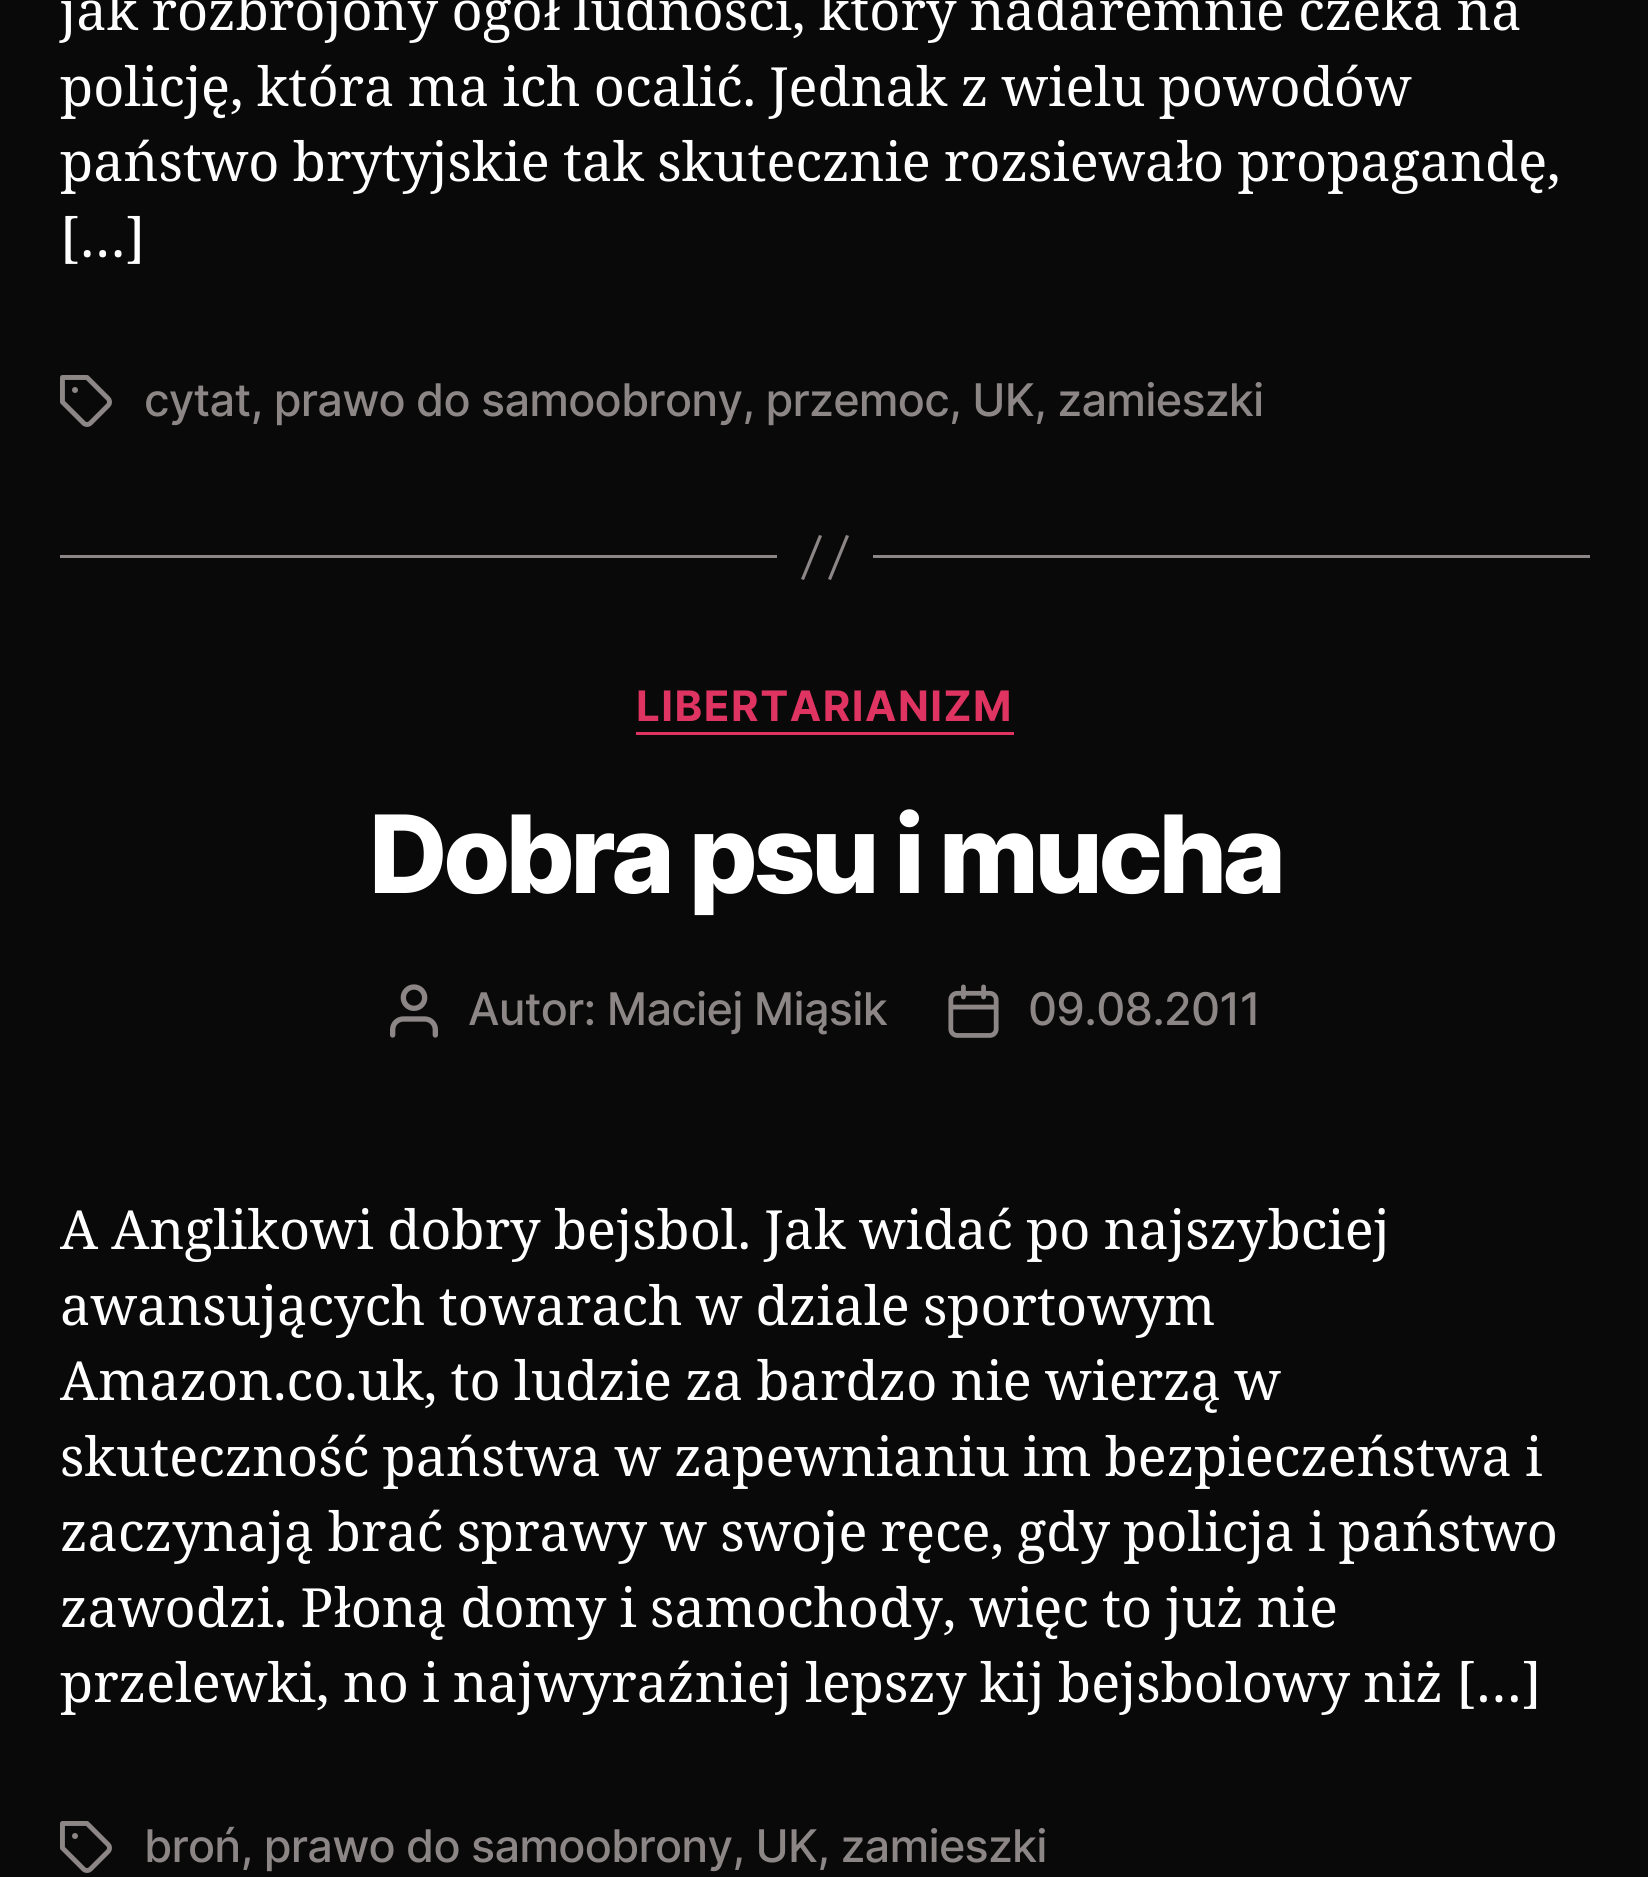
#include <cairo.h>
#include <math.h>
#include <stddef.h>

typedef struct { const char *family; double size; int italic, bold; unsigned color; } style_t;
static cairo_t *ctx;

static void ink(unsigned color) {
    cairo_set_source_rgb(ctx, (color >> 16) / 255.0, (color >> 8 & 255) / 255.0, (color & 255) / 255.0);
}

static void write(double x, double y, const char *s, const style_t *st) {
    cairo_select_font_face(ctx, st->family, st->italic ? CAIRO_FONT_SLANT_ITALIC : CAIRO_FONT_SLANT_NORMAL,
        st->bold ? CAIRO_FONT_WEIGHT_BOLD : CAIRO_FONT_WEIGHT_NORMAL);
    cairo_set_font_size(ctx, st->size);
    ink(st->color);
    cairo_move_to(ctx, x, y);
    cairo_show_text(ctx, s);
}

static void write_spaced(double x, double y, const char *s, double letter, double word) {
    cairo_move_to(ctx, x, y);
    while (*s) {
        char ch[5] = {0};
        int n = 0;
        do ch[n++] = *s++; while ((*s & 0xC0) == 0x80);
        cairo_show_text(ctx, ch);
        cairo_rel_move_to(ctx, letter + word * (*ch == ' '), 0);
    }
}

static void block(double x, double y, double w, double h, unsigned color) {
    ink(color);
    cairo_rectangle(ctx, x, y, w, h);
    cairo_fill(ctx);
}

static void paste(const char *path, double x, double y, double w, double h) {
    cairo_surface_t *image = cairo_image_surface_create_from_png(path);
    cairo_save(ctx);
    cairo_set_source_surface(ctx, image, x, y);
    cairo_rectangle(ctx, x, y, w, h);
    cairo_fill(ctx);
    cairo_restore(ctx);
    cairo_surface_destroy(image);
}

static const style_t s1 = {"Noto Serif", 54, 0, 0, 0xffffff};

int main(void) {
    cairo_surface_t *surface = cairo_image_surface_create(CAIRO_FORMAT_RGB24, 1648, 1877);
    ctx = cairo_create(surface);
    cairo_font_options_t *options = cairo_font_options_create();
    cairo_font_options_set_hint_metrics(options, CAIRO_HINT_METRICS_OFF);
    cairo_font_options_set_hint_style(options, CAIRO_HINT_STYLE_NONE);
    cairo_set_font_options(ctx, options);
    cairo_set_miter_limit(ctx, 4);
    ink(0x0a0909);
    cairo_paint(ctx);
    cairo_select_font_face(ctx, "Noto Serif", CAIRO_FONT_SLANT_NORMAL, CAIRO_FONT_WEIGHT_NORMAL);
    cairo_set_font_size(ctx, 54);
    ink(0xffffff);
    write_spaced(60, 30, "jak rozbrojony ogół ludności, który nadaremnie czeka na", 0, -0.75);
    write_spaced(60, 106, "policję, która ma ich ocalić. Jednak z wielu powodów", 0, -0.75);
    write_spaced(60, 181, "państwo brytyjskie tak skutecznie rozsiewało propagandę,", 0, -0.75);
    write(60, 257, "[…]", &s1);
    paste("pic1.png", 60, 375, 52, 52);
    cairo_select_font_face(ctx, "Inter Medium", CAIRO_FONT_SLANT_NORMAL, CAIRO_FONT_WEIGHT_NORMAL);
    cairo_set_font_size(ctx, 45);
    ink(0x8c8686);
    write_spaced(144, 416, "cytat, prawo do samoobrony, przemoc, UK, zamieszki", -0.75, 0);
    block(873, 555, 717, 3, 0x8c8686);
    block(60, 555, 717, 3, 0x8c8686);
    cairo_new_path(ctx);
    cairo_move_to(ctx, 819, 535);
    cairo_line_to(ctx, 822, 536);
    cairo_line_to(ctx, 804, 580);
    cairo_line_to(ctx, 801, 579);
    cairo_close_path(ctx);
    cairo_move_to(ctx, 846, 535);
    cairo_line_to(ctx, 849, 536);
    cairo_line_to(ctx, 831, 580);
    cairo_line_to(ctx, 828, 579);
    cairo_close_path(ctx);
    cairo_fill(ctx);
    block(636, 732, 378, 3, 0xdf3461);
    cairo_select_font_face(ctx, "Inter", CAIRO_FONT_SLANT_NORMAL, CAIRO_FONT_WEIGHT_BOLD);
    cairo_set_font_size(ctx, 42);
    write_spaced(636, 721, "LIBERTARIANIZM", 1.5, 0);
    cairo_select_font_face(ctx, "Inter ExtraBold", CAIRO_FONT_SLANT_NORMAL, CAIRO_FONT_WEIGHT_NORMAL);
    cairo_set_font_size(ctx, 108);
    ink(0xffffff);
    write_spaced(369, 893, "Dobra psu i mucha", -4.5, 0);
    paste("pic2.png", 390, 984, 48, 54);
    cairo_select_font_face(ctx, "Inter Medium", CAIRO_FONT_SLANT_NORMAL, CAIRO_FONT_WEIGHT_NORMAL);
    cairo_set_font_size(ctx, 45);
    ink(0x8c8686);
    write_spaced(468, 1025, "Autor: Maciej Miąsik", -0.75, 0);
    paste("pic3.png", 948, 984, 51, 54);
    write_spaced(1028, 1025, "09.08.2011", -0.75, 0);
    cairo_select_font_face(ctx, "Noto Serif", CAIRO_FONT_SLANT_NORMAL, CAIRO_FONT_WEIGHT_NORMAL);
    cairo_set_font_size(ctx, 54);
    ink(0xffffff);
    write_spaced(60, 1249, "A Anglikowi dobry bejsbol. Jak widać po najszybciej", 0, -0.75);
    write_spaced(60, 1325, "awansujących towarach w dziale sportowym", 0, -0.75);
    write_spaced(60, 1400, "Amazon.co.uk, to ludzie za bardzo nie wierzą w", 0, -0.75);
    write_spaced(60, 1476, "skuteczność państwa w zapewnianiu im bezpieczeństwa i", 0, -0.75);
    write_spaced(60, 1551, "zaczynają brać sprawy w swoje ręce, gdy policja i państwo", 0, -0.75);
    write_spaced(60, 1627, "zawodzi. Płoną domy i samochody, więc to już nie", 0, -0.75);
    write_spaced(60, 1702, "przelewki, no i najwyraźniej lepszy kij bejsbolowy niż […]", 0, -0.75);
    paste("pic1.png", 60, 1821, 52, 52);
    cairo_select_font_face(ctx, "Inter Medium", CAIRO_FONT_SLANT_NORMAL, CAIRO_FONT_WEIGHT_NORMAL);
    cairo_set_font_size(ctx, 45);
    ink(0x8c8686);
    write_spaced(144, 1862, "broń, prawo do samoobrony, UK, zamieszki", -0.75, 0);
    cairo_surface_write_to_png(surface, "screenshot.png");
    cairo_font_options_destroy(options);
    cairo_destroy(ctx);
    cairo_surface_destroy(surface);
    return 0;
}
